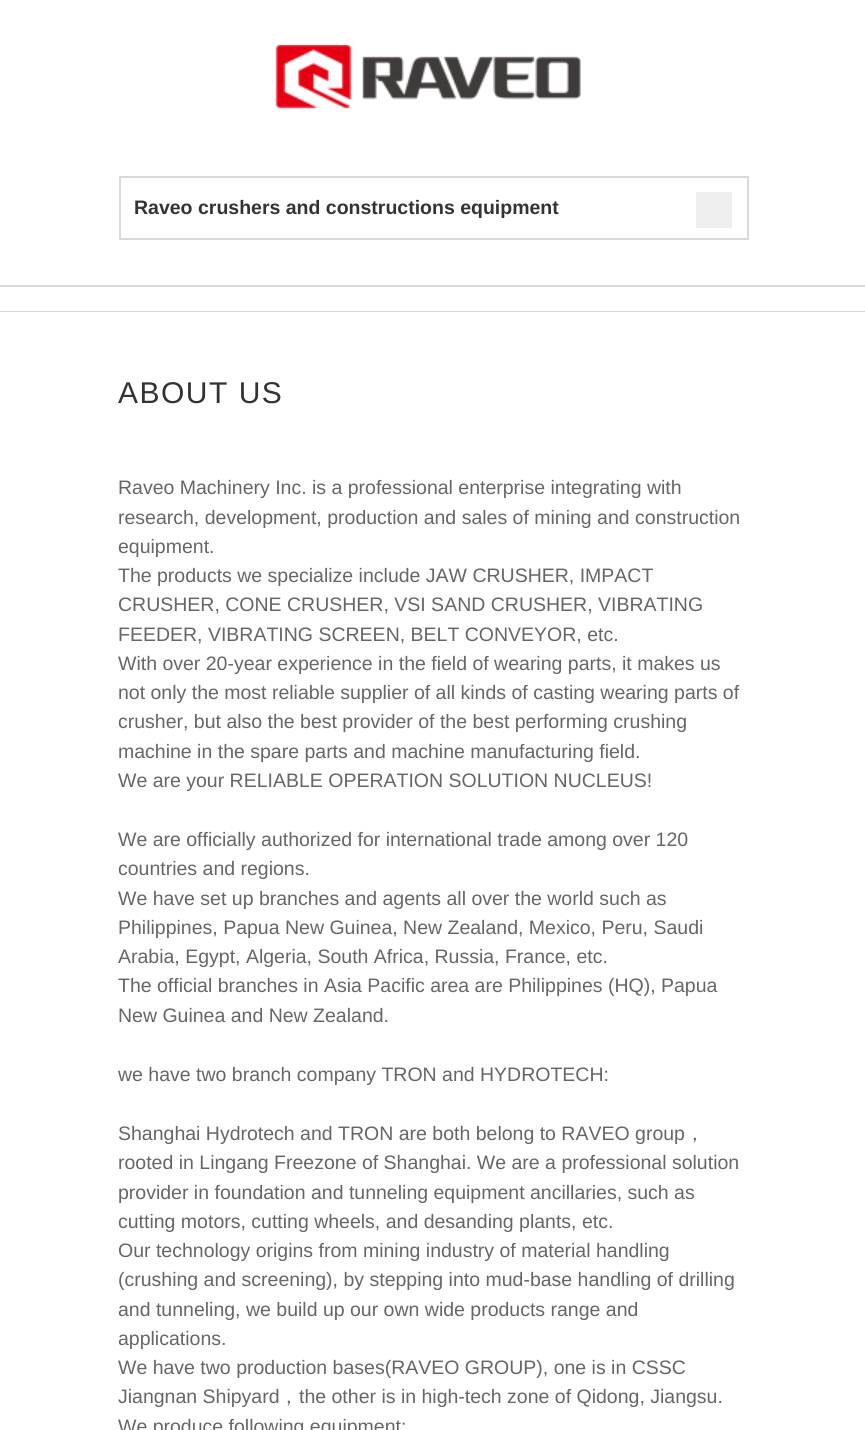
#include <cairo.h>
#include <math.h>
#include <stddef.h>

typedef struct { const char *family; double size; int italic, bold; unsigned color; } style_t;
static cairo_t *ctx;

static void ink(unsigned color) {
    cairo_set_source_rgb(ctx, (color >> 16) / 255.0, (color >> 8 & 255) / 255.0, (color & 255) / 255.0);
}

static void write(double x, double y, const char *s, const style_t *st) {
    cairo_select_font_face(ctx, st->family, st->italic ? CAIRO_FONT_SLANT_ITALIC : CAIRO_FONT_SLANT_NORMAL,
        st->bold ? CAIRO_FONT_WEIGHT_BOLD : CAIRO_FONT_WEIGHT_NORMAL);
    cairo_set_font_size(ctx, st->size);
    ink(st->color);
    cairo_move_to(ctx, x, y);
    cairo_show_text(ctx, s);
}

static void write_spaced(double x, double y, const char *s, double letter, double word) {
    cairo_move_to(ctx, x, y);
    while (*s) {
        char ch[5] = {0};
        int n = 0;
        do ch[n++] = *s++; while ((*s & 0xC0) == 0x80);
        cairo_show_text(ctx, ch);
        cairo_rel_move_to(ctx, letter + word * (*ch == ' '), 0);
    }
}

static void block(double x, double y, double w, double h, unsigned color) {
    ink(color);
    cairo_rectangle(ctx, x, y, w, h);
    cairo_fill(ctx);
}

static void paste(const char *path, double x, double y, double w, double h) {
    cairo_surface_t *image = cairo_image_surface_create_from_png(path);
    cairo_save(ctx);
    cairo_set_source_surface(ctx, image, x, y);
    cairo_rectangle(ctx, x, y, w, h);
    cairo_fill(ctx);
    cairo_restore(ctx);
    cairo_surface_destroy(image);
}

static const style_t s1 = {"Liberation Sans", 19.5, 0, 1, 0x333333};
static const style_t s2 = {"Liberation Sans", 19.5, 0, 0, 0x666666};
static const style_t s3 = {"WenQuanYi Zen Hei Medium", 19.5, 0, 0, 0x666666};

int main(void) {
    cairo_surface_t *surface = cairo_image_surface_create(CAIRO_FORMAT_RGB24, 865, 1430);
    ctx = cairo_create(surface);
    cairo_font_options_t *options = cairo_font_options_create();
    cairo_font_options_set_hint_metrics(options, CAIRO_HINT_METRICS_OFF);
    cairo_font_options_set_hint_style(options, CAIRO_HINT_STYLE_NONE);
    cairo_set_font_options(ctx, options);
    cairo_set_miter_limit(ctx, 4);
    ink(0xffffff);
    cairo_paint(ctx);
    paste("pic1.png", 275, 45, 306, 64);
    block(0, 285, 865, 2, 0xd9d9d9);
    cairo_rectangle(ctx, 120, 177, 628, 62);
    cairo_stroke(ctx);
    write(134, 214, "Raveo crushers and constructions equipment", &s1);
    block(696, 192, 36, 36, 0xefefef);
    block(0, 311, 865, 1, 0xd9d9d9);
    cairo_select_font_face(ctx, "Liberation Sans", CAIRO_FONT_SLANT_NORMAL, CAIRO_FONT_WEIGHT_NORMAL);
    cairo_set_font_size(ctx, 30);
    ink(0x333333);
    write_spaced(118, 403, "ABOUT US", 1.5, 0);
    write(118, 494, "Raveo Machinery Inc. is a professional enterprise integrating with", &s2);
    write(118, 524, "research, development, production and sales of mining and construction", &s2);
    write(118, 553, "equipment.", &s2);
    write(118, 582, "The products we specialize include JAW CRUSHER, IMPACT", &s2);
    write(118, 611, "CRUSHER, CONE CRUSHER, VSI SAND CRUSHER, VIBRATING", &s2);
    write(118, 641, "FEEDER, VIBRATING SCREEN, BELT CONVEYOR, etc.", &s2);
    write(118, 670, "With over 20-year experience in the field of wearing parts, it makes us", &s2);
    write(118, 699, "not only the most reliable supplier of all kinds of casting wearing parts of", &s2);
    write(118, 728, "crusher, but also the best provider of the best performing crushing", &s2);
    write(118, 758, "machine in the spare parts and machine manufacturing field.", &s2);
    write(118, 787, "We are your RELIABLE OPERATION SOLUTION NUCLEUS!", &s2);
    write(118, 846, "We are officially authorized for international trade among over 120", &s2);
    write(118, 875, "countries and regions.", &s2);
    write(118, 905, "We have set up branches and agents all over the world such as", &s2);
    write(118, 934, "Philippines, Papua New Guinea, New Zealand, Mexico, Peru, Saudi", &s2);
    write(118, 963, "Arabia, Egypt, Algeria, South Africa, Russia, France, etc.", &s2);
    write(118, 992, "The official branches in Asia Pacific area are Philippines (HQ), Papua", &s2);
    write(118, 1022, "New Guinea and New Zealand.", &s2);
    write(118, 1081, "we have two branch company TRON and HYDROTECH:", &s2);
    write(118, 1140, "Shanghai Hydrotech and TRON are both belong to RAVEO group", &s2);
    write(685, 1140, "，", &s3);
    write(118, 1169, "rooted in Lingang Freezone of Shanghai. We are a professional solution", &s2);
    write(118, 1199, "provider in foundation and tunneling equipment ancillaries, such as", &s2);
    write(118, 1228, "cutting motors, cutting wheels, and desanding plants, etc.", &s2);
    write(118, 1257, "Our technology origins from mining industry of material handling", &s2);
    write(118, 1286, "(crushing and screening), by stepping into mud-base handling of drilling", &s2);
    write(118, 1316, "and tunneling, we build up our own wide products range and", &s2);
    write(118, 1345, "applications.", &s2);
    write(118, 1374, "We have two production bases(RAVEO GROUP), one is in CSSC", &s2);
    write(118, 1403, "Jiangnan Shipyard", &s2);
    write(279, 1403, "，", &s3);
    write(299, 1403, "the other is in high-tech zone of Qidong, Jiangsu.", &s2);
    write(118, 1433, "We produce following equipment:", &s2);
    cairo_surface_write_to_png(surface, "screenshot.png");
    cairo_font_options_destroy(options);
    cairo_destroy(ctx);
    cairo_surface_destroy(surface);
    return 0;
}
